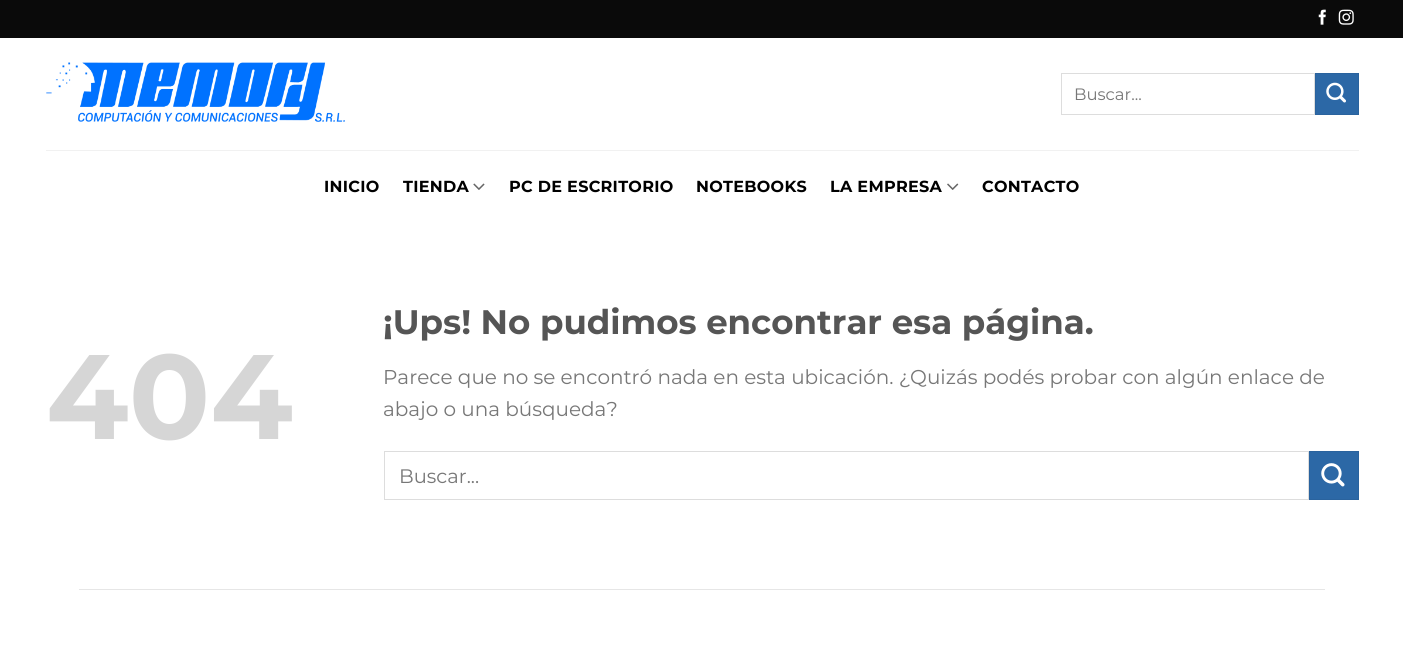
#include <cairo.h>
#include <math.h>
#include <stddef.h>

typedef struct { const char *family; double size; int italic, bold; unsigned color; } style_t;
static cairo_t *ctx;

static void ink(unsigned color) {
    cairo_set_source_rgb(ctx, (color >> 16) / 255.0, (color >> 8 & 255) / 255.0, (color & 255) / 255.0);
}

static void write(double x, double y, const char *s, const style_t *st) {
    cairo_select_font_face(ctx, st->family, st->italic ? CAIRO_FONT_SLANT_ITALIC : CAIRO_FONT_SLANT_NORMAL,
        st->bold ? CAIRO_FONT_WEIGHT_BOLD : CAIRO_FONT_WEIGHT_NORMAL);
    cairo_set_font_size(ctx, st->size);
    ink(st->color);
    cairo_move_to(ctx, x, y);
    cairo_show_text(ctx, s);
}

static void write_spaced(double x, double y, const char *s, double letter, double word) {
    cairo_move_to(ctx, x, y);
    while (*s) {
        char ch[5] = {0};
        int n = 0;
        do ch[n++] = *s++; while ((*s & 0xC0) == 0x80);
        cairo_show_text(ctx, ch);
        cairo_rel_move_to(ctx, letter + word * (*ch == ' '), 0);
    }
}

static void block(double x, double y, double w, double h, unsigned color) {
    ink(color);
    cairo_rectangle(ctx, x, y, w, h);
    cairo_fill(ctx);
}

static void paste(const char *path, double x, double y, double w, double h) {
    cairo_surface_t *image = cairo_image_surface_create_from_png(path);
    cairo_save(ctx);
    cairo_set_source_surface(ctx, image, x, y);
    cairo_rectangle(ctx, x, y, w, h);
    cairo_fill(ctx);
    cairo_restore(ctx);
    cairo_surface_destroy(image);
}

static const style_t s1 = {"Montserrat", 16.5, 0, 0, 0x777777};
static const style_t s2 = {"Montserrat", 120, 0, 1, 0xd6d6d6};
static const style_t s3 = {"Montserrat", 34, 0, 1, 0x555555};
static const style_t s4 = {"Montserrat", 20, 0, 0, 0x777777};
static const style_t s5 = {"Montserrat", 19.5, 0, 0, 0x777777};

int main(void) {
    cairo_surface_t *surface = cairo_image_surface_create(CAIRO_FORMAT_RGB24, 1403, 652);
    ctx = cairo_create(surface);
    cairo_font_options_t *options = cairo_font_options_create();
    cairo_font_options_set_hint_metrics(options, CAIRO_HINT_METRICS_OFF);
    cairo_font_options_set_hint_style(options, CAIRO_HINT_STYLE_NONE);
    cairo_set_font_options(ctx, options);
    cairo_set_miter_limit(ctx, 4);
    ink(0xffffff);
    cairo_paint(ctx);
    block(0, 0, 1403, 38, 0x0a0a0a);
    paste("pic1.png", 1318, 9, 8, 16);
    paste("pic2.png", 1338, 9, 16, 16);
    paste("pic3.png", 46, 62, 299, 60);
    cairo_rectangle(ctx, 1061.5, 73.5, 253, 41);
    ink(0xdddddd);
    cairo_set_line_width(ctx, 1);
    cairo_stroke(ctx);
    write(1074, 100, "Buscar...", &s1);
    ink(0x2c68a6);
    cairo_rectangle(ctx, 1315.5, 73.5, 43, 41);
    cairo_fill_preserve(ctx);
    ink(0x2a639e);
    cairo_stroke(ctx);
    paste("pic4.png", 1326, 82, 20, 21);
    block(46, 150, 1313, 1, 0xf1f1f1);
    cairo_select_font_face(ctx, "Montserrat", CAIRO_FONT_SLANT_NORMAL, CAIRO_FONT_WEIGHT_BOLD);
    cairo_set_font_size(ctx, 16);
    ink(0x000000);
    write_spaced(324, 192, "INICIO", 0.3, 0);
    write_spaced(403, 192, "TIENDA", 0.3, 0);
    paste("pic5.png", 473, 183, 12, 7);
    write_spaced(509, 192, "PC DE ESCRITORIO", 0.3, 0);
    write_spaced(696, 192, "NOTEBOOKS", 0.3, 0);
    write_spaced(830, 192, "LA EMPRESA", 0.3, 0);
    paste("pic6.png", 947, 183, 12, 7);
    write_spaced(982, 192, "CONTACTO", 0.3, 0);
    write(46, 439, "404", &s2);
    write(383, 334, "¡Ups! No pudimos encontrar esa página.", &s3);
    write(383, 384, "Parece que no se encontró nada en esta ubicación. ¿Quizás podés probar con algún enlace de", &s4);
    write(383, 416, "abajo o una búsqueda?", &s4);
    cairo_rectangle(ctx, 384.5, 451.5, 924, 48);
    ink(0xdddddd);
    cairo_stroke(ctx);
    write(399, 483, "Buscar...", &s5);
    ink(0x2c68a6);
    cairo_rectangle(ctx, 1309.5, 451.5, 49, 48);
    cairo_fill_preserve(ctx);
    ink(0x2a639e);
    cairo_stroke(ctx);
    paste("pic7.png", 1321, 463, 24, 24);
    block(79, 589, 1246, 1, 0xe6e6e6);
    cairo_surface_write_to_png(surface, "screenshot.png");
    cairo_font_options_destroy(options);
    cairo_destroy(ctx);
    cairo_surface_destroy(surface);
    return 0;
}
